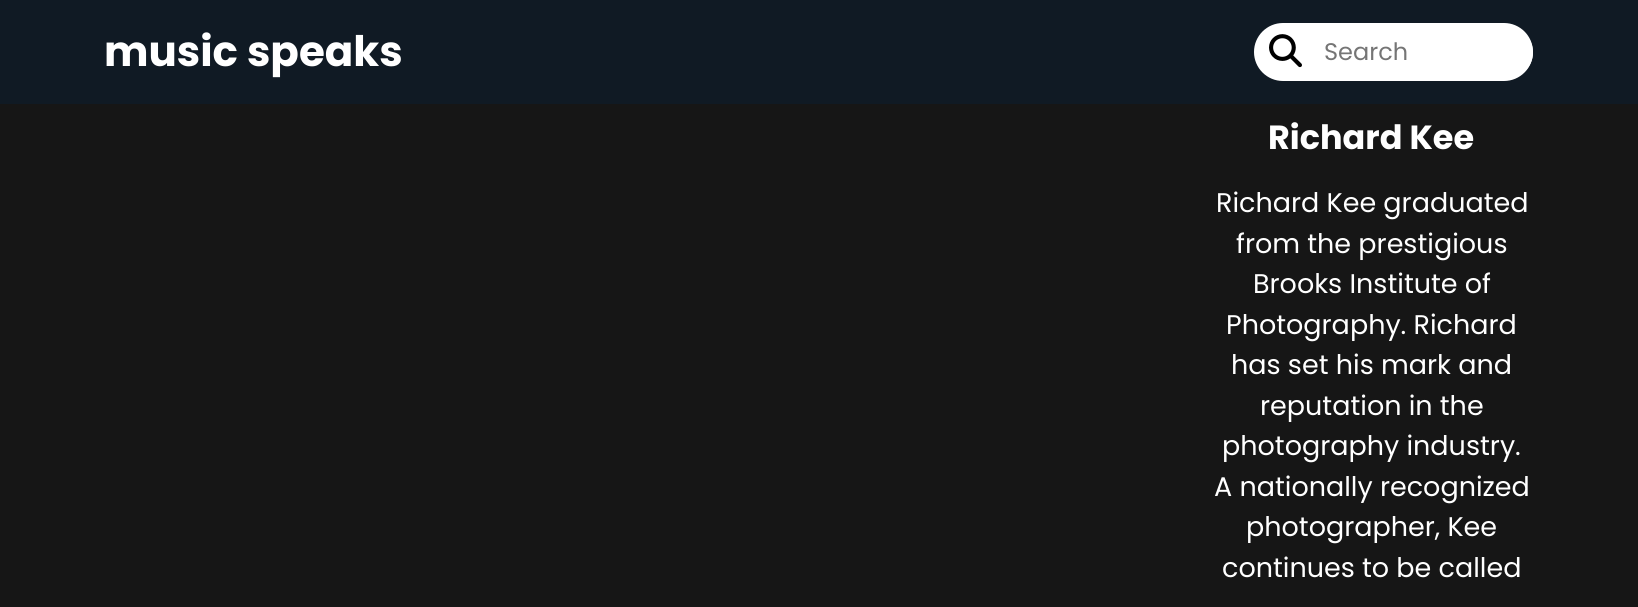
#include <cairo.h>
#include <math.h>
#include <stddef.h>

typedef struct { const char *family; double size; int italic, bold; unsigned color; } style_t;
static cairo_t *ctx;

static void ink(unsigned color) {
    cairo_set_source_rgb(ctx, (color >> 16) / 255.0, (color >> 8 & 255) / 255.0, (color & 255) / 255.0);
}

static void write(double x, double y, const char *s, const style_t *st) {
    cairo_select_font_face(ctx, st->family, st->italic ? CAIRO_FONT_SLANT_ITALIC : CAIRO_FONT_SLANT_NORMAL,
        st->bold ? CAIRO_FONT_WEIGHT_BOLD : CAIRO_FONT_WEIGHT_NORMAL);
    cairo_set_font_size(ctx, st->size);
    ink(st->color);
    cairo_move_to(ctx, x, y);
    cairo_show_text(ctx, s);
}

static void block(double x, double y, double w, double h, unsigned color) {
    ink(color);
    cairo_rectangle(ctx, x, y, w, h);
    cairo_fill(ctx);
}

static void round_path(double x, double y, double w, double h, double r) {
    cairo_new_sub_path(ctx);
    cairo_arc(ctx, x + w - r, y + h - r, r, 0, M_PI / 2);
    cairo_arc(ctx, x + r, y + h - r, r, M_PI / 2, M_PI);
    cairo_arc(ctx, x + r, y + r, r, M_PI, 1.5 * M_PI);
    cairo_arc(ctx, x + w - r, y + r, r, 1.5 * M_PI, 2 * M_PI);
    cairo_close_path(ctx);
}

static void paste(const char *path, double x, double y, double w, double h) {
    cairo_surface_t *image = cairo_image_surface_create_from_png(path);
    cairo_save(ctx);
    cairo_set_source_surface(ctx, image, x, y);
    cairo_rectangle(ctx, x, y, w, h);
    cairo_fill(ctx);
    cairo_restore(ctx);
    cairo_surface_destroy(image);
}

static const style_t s1 = {"Poppins", 42, 0, 1, 0xffffff};
static const style_t s2 = {"Poppins", 24, 0, 0, 0x757575};
static const style_t s3 = {"Poppins", 33.5, 0, 1, 0xffffff};
static const style_t s4 = {"Poppins", 27, 0, 0, 0xffffff};

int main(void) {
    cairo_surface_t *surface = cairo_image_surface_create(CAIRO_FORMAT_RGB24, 1638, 607);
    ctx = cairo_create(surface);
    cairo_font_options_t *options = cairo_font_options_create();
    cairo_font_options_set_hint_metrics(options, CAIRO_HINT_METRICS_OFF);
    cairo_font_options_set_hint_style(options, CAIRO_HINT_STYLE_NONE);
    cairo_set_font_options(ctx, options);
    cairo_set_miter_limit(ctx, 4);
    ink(0x161616);
    cairo_paint(ctx);
    block(0, 0, 1638, 104, 0x101a24);
    write(104, 66, "music speaks", &s1);
    round_path(1254, 23, 279, 58, 29);
    cairo_fill(ctx);
    paste("pic1.png", 1269, 34, 33, 34);
    round_path(1323, 27, 210, 51, 25.5);
    cairo_fill(ctx);
    write(1324, 60, "Search", &s2);
    write(1268, 149, "Richard Kee", &s3);
    write(1216, 212, "Richard Kee graduated", &s4);
    write(1236, 253, "from the prestigious", &s4);
    write(1253, 293, "Brooks Institute of", &s4);
    write(1226, 334, "Photography. Richard", &s4);
    write(1231, 374, "has set his mark and", &s4);
    write(1260, 415, "reputation in the", &s4);
    write(1222, 455, "photography industry.", &s4);
    write(1214, 496, "A nationally recognized", &s4);
    write(1246, 536, "photographer, Kee", &s4);
    write(1222, 577, "continues to be called", &s4);
    cairo_surface_write_to_png(surface, "screenshot.png");
    cairo_font_options_destroy(options);
    cairo_destroy(ctx);
    cairo_surface_destroy(surface);
    return 0;
}
